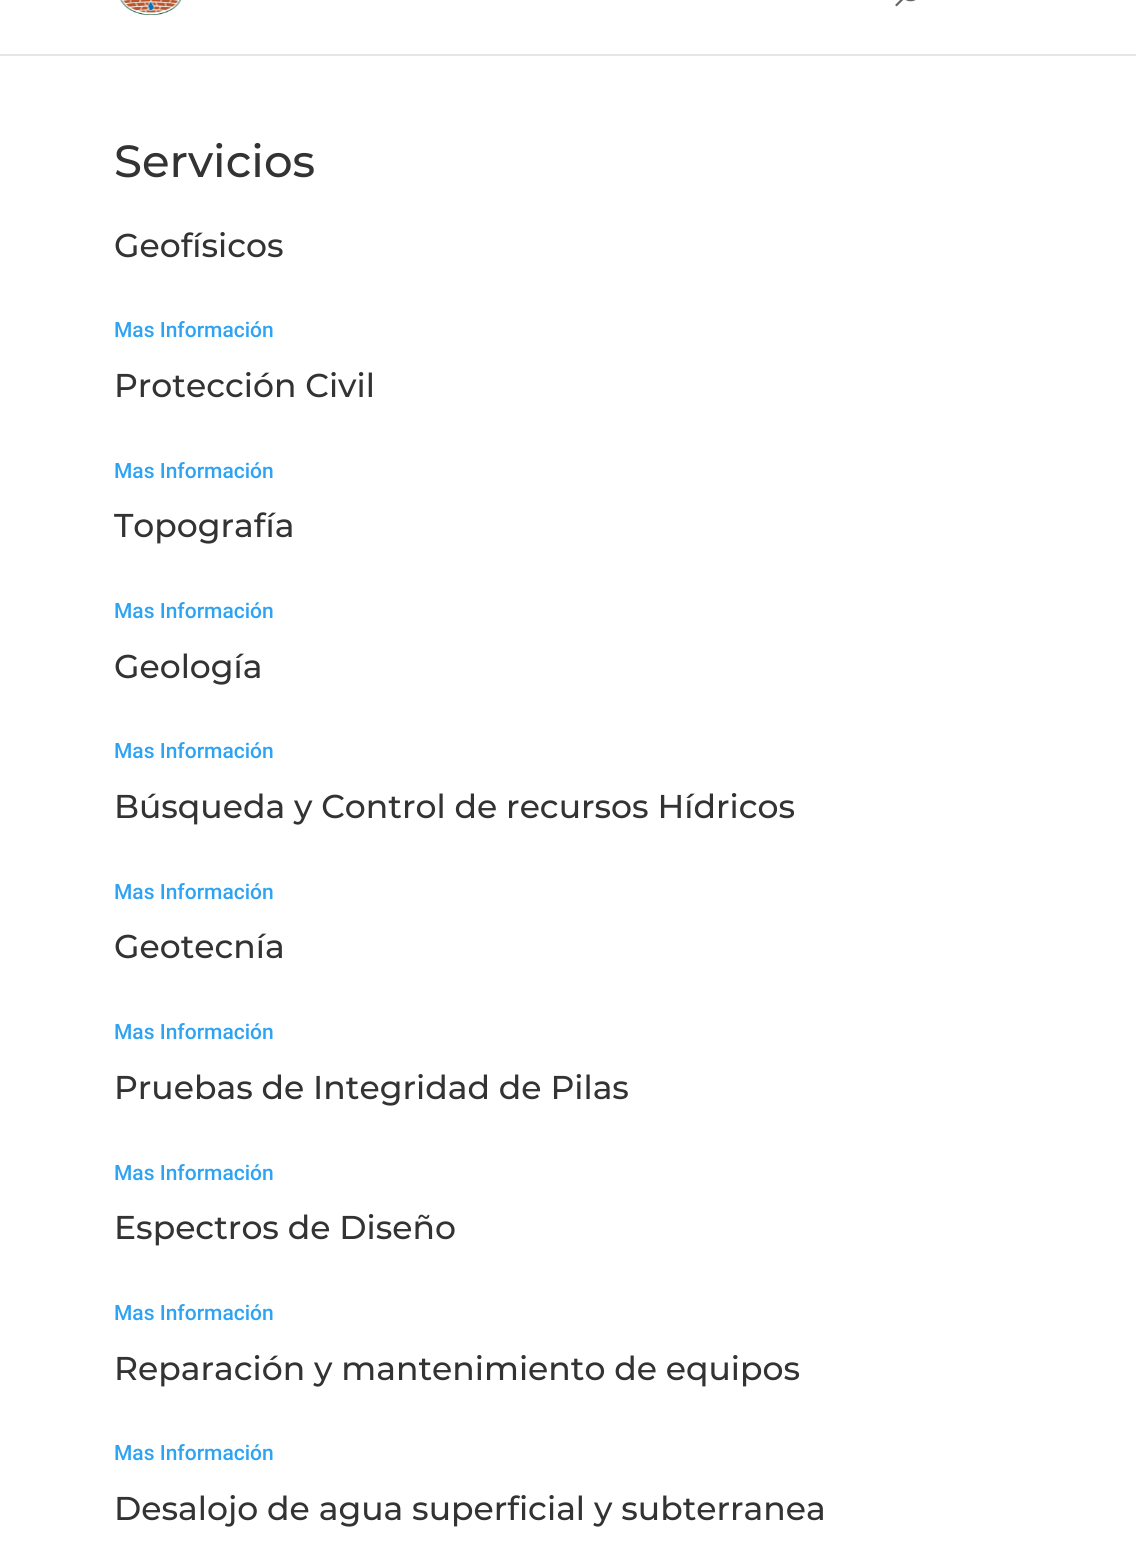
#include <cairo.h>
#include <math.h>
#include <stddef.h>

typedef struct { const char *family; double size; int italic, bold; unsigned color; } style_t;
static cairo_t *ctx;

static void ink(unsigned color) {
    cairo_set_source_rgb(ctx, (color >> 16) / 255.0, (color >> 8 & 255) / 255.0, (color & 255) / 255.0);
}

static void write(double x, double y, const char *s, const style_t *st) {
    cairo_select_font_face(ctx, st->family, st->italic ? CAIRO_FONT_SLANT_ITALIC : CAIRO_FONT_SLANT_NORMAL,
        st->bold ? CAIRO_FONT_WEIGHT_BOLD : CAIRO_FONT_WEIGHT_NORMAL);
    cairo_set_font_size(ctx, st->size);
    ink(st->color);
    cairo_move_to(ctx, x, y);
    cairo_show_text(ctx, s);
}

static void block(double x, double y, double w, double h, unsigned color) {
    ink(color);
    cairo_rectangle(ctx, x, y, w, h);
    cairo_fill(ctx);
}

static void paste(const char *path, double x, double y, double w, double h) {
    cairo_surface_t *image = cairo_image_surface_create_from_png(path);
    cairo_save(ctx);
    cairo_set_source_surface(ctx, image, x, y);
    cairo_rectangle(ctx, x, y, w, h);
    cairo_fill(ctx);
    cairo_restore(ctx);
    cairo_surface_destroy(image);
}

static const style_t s1 = {"Montserrat Medium", 45, 0, 0, 0x333333};
static const style_t s2 = {"Montserrat Medium", 33, 0, 0, 0x333333};
static const style_t s3 = {"Roboto Medium", 21, 0, 0, 0x2ea3f2};

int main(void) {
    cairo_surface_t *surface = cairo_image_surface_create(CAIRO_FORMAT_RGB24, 1136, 1552);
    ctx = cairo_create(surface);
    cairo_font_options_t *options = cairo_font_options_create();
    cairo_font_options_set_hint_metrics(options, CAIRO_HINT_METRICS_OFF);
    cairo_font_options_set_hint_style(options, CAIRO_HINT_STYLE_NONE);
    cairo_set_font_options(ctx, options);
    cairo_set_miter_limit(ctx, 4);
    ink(0xffffff);
    cairo_paint(ctx);
    block(0, 54, 1136, 2, 0xe6e6e6);
    paste("pic1.png", 120, 0, 62, 15);
    paste("pic2.png", 895, 0, 21, 7);
    write(114, 177, "Servicios", &s1);
    write(114, 257, "Geofísicos", &s2);
    write(114, 337, "Mas Información", &s3);
    write(114, 397, "Protección Civil", &s2);
    write(114, 478, "Mas Información", &s3);
    write(114, 537, "Topografía", &s2);
    write(114, 618, "Mas Información", &s3);
    write(114, 678, "Geología", &s2);
    write(114, 758, "Mas Información", &s3);
    write(114, 818, "Búsqueda y Control de recursos Hídricos", &s2);
    write(114, 899, "Mas Información", &s3);
    write(114, 958, "Geotecnía", &s2);
    write(114, 1039, "Mas Información", &s3);
    write(114, 1099, "Pruebas de Integridad de Pilas", &s2);
    write(114, 1180, "Mas Información", &s3);
    write(114, 1239, "Espectros de Diseño", &s2);
    write(114, 1320, "Mas Información", &s3);
    write(114, 1380, "Reparación y mantenimiento de equipos", &s2);
    write(114, 1460, "Mas Información", &s3);
    write(114, 1520, "Desalojo de agua superficial y subterranea", &s2);
    cairo_surface_write_to_png(surface, "screenshot.png");
    cairo_font_options_destroy(options);
    cairo_destroy(ctx);
    cairo_surface_destroy(surface);
    return 0;
}
